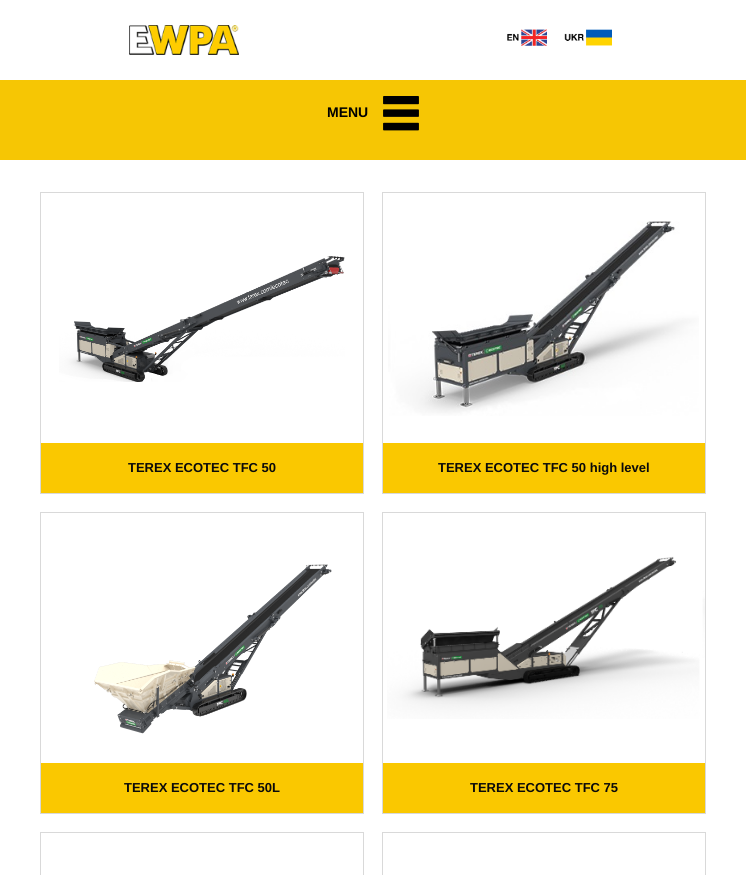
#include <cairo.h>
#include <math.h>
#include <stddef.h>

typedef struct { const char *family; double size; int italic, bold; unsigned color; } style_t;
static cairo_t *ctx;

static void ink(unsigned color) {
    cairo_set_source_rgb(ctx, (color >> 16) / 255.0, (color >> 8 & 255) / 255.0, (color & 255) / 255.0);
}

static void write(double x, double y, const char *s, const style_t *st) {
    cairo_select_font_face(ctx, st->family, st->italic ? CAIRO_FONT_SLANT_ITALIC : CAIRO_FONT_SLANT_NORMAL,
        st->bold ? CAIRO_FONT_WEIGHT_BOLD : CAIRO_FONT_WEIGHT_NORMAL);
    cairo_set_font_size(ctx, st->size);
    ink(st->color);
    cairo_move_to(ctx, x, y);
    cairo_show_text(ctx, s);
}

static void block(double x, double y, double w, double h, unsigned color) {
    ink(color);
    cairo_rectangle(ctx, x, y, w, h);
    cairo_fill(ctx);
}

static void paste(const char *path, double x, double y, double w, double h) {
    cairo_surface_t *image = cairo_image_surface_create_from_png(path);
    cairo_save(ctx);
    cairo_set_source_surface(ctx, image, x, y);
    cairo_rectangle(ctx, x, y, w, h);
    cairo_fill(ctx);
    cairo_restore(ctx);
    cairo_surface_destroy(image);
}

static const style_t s1 = {"Liberation Sans", 14, 0, 1, 0x000000};
static const style_t s2 = {"Liberation Sans", 13, 0, 1, 0x0a0a0a};

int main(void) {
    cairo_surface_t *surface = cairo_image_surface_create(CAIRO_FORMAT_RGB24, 746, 875);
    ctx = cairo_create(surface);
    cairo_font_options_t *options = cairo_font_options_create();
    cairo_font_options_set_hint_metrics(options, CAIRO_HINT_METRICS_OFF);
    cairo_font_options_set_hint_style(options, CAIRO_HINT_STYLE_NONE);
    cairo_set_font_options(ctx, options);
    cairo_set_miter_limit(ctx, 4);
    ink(0xffffff);
    cairo_paint(ctx);
    paste("pic1.png", 129, 25, 110, 30);
    paste("pic2.png", 507, 29, 40, 17);
    paste("pic3.png", 564, 29, 48, 17);
    block(0, 80, 746, 80, 0xf6c604);
    write(327, 117, "MENU", &s1);
    paste("pic4.png", 383, 96, 36, 35);
    paste("pic5.png", 59, 256, 286, 126);
    cairo_rectangle(ctx, 40.5, 192.5, 323, 301);
    ink(0xd9d9d9);
    cairo_set_line_width(ctx, 1);
    cairo_stroke(ctx);
    block(41, 443, 322, 50, 0xfac800);
    write(128, 472, "TEREX ECOTEC TFC 50", &s2);
    paste("pic6.png", 388, 221, 311, 195);
    cairo_rectangle(ctx, 382.5, 192.5, 323, 301);
    ink(0xd9d9d9);
    cairo_stroke(ctx);
    block(383, 443, 322, 50, 0xfac800);
    write(438, 472, "TEREX ECOTEC TFC 50 high level", &s2);
    paste("pic7.png", 94, 564, 238, 170);
    cairo_rectangle(ctx, 40.5, 512.5, 323, 301);
    ink(0xd9d9d9);
    cairo_stroke(ctx);
    block(41, 763, 322, 50, 0xfac800);
    write(124, 792, "TEREX ECOTEC TFC 50L", &s2);
    paste("pic8.png", 387, 556, 318, 163);
    cairo_rectangle(ctx, 382.5, 512.5, 323, 301);
    ink(0xd9d9d9);
    cairo_stroke(ctx);
    block(383, 763, 322, 50, 0xfac800);
    write(470, 792, "TEREX ECOTEC TFC 75", &s2);
    cairo_rectangle(ctx, 40.5, 832.5, 323, 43);
    ink(0xd9d9d9);
    cairo_stroke(ctx);
    cairo_rectangle(ctx, 382.5, 832.5, 323, 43);
    cairo_stroke(ctx);
    cairo_surface_write_to_png(surface, "screenshot.png");
    cairo_font_options_destroy(options);
    cairo_destroy(ctx);
    cairo_surface_destroy(surface);
    return 0;
}
